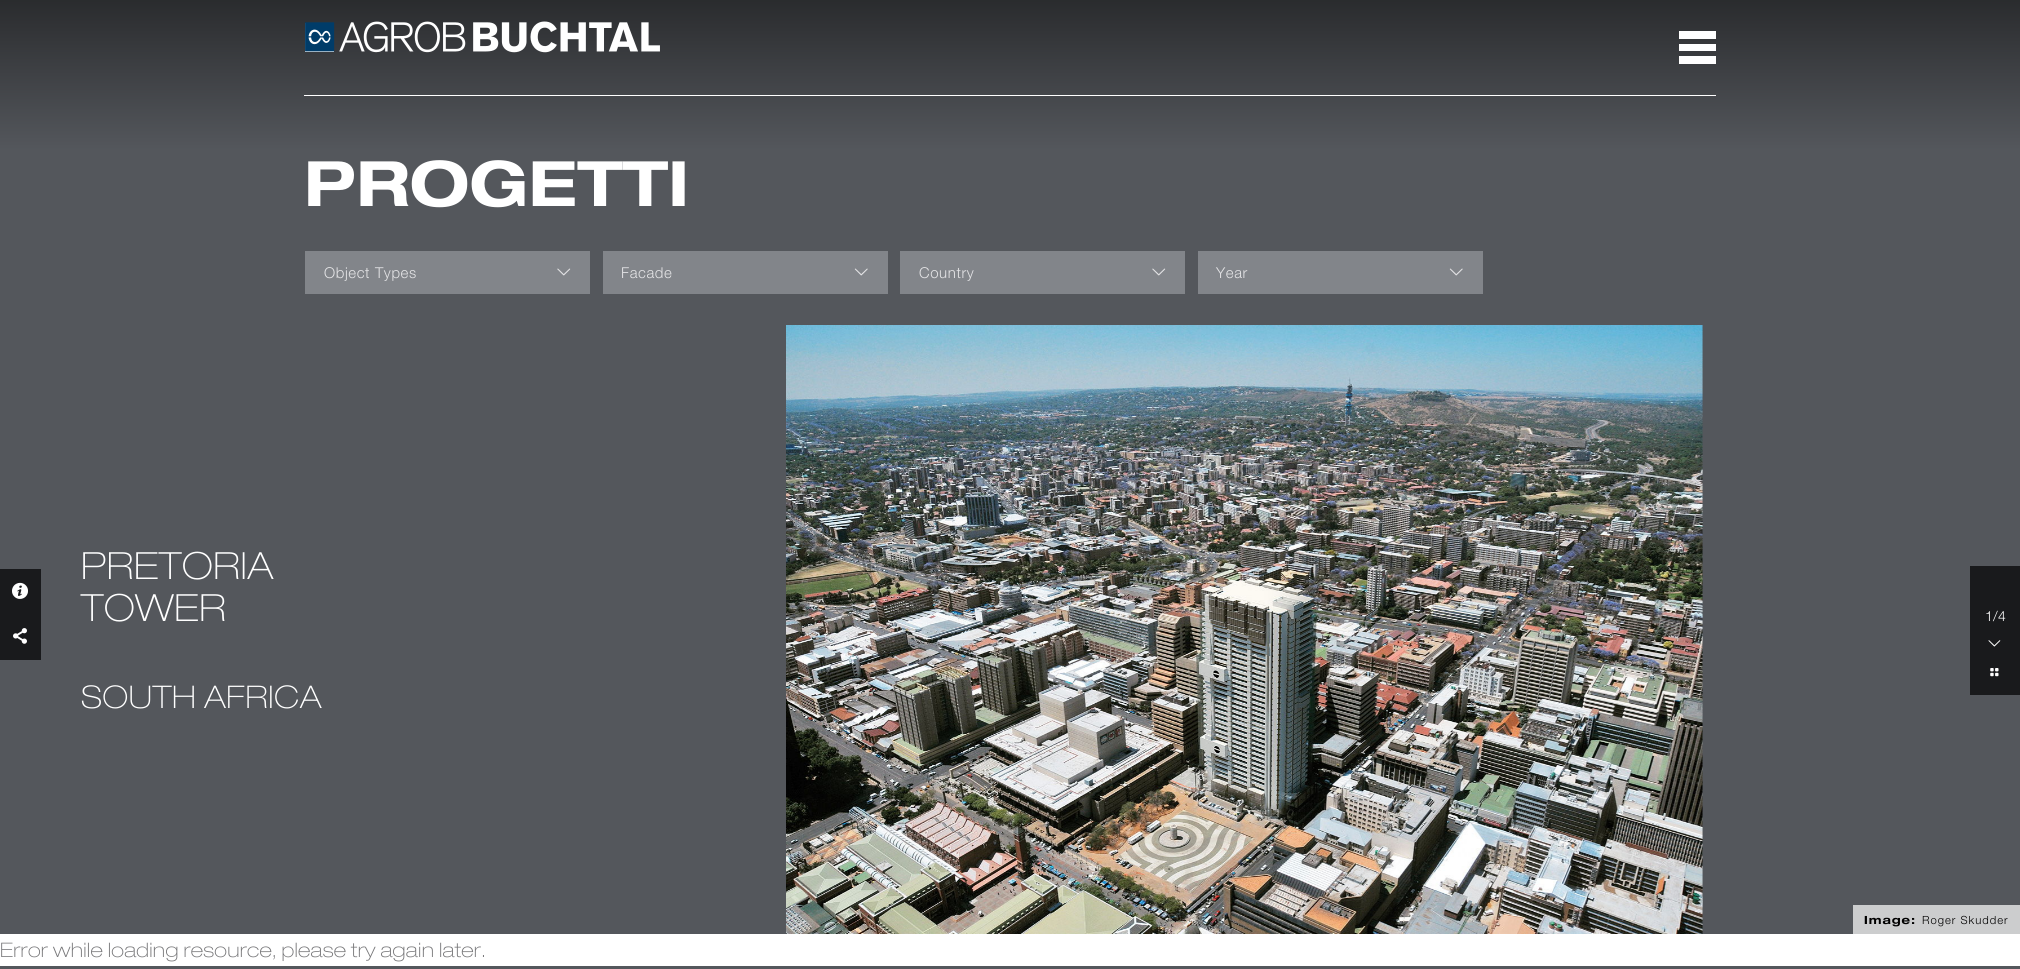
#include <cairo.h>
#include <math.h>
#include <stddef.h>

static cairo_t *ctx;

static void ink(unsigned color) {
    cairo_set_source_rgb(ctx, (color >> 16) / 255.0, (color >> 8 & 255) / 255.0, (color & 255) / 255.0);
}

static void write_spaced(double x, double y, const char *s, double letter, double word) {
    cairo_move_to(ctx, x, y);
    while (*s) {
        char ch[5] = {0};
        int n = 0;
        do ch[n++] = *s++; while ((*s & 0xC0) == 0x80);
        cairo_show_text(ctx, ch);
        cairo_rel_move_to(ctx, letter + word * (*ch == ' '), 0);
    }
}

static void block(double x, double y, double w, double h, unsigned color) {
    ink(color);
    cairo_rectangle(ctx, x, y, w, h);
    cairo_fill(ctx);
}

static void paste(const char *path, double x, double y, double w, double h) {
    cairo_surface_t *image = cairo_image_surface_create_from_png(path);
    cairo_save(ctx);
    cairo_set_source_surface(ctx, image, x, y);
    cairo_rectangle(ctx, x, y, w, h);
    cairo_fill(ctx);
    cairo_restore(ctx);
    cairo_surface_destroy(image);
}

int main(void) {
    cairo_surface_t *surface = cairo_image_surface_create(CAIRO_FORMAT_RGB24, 2020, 969);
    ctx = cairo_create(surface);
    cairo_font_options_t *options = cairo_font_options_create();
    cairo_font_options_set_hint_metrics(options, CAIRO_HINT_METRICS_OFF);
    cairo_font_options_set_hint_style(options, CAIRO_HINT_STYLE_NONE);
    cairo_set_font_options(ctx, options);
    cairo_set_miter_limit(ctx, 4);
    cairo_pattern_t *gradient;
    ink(0xffffff);
    cairo_paint(ctx);
    gradient = cairo_pattern_create_linear(1010, -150, 1010, 150);
    cairo_pattern_add_color_stop_rgba(gradient, 0, 0, 0, 0, 1);
    cairo_pattern_add_color_stop_rgba(gradient, 1, 0.329, 0.341, 0.361, 1);
    cairo_set_source(ctx, gradient);
    cairo_pattern_destroy(gradient);
    cairo_rectangle(ctx, 0, 0, 2020, 150);
    cairo_fill(ctx);
    block(304, 95, 1412, 1, 0xffffff);
    paste("pic1.png", 305, 21, 355, 32);
    block(1679, 31, 37, 8, 0xffffff);
    block(1679, 44, 37, 7, 0xffffff);
    block(1679, 56, 37, 8, 0xffffff);
    block(0, 150, 2020, 784, 0x54575c);
    cairo_select_font_face(ctx, "Helvetica Neue", CAIRO_FONT_SLANT_NORMAL, CAIRO_FONT_WEIGHT_BOLD);
    cairo_set_font_size(ctx, 62.5);
    ink(0xffffff);
    write_spaced(304, 206, "PROGETTI", 0.3, 0);
    block(305, 251, 285, 43, 0x82858a);
    cairo_select_font_face(ctx, "Helvetica Neue Light", CAIRO_FONT_SLANT_NORMAL, CAIRO_FONT_WEIGHT_NORMAL);
    cairo_set_font_size(ctx, 15);
    ink(0xe3e3e5);
    write_spaced(324, 278, "Object Types", 0.6, 0);
    paste("pic2.png", 557, 268, 14, 8);
    block(603, 251, 285, 43, 0x82858a);
    ink(0xe3e3e5);
    write_spaced(621, 278, "Facade", 0.6, 0);
    paste("pic3.png", 854, 268, 14, 8);
    block(900, 251, 285, 43, 0x82858a);
    ink(0xe3e3e5);
    write_spaced(919, 278, "Country", 0.6, 0);
    paste("pic2.png", 1152, 268, 14, 8);
    block(1198, 251, 285, 43, 0x82858a);
    ink(0xe3e3e5);
    write_spaced(1216, 278, "Year", 0.6, 0);
    paste("pic3.png", 1449, 268, 14, 8);
    block(0, 569, 41, 91, 0x191a1c);
    paste("pic4.png", 12, 582, 16, 17);
    paste("pic5.png", 13, 628, 14, 16);
    cairo_select_font_face(ctx, "Helvetica Neue Thin", CAIRO_FONT_SLANT_NORMAL, CAIRO_FONT_WEIGHT_NORMAL);
    cairo_set_font_size(ctx, 37.5);
    ink(0xffffff);
    write_spaced(81, 579, "PRETORIA", 0.75, 0);
    write_spaced(81, 621, "TOWER", 0.75, 0);
    cairo_set_font_size(ctx, 31.25);
    write_spaced(81, 708, "SOUTH AFRICA", 0.75, 0);
    paste("pic6.png", 786, 325, 917, 609);
    block(1853, 905, 167, 29, 0xcccdce);
    cairo_select_font_face(ctx, "Helvetica Neue", CAIRO_FONT_SLANT_NORMAL, CAIRO_FONT_WEIGHT_BOLD);
    cairo_set_font_size(ctx, 11.25);
    ink(0x000000);
    write_spaced(1864, 924, "Image:", 1, 0);
    cairo_select_font_face(ctx, "Helvetica Neue Light", CAIRO_FONT_SLANT_NORMAL, CAIRO_FONT_WEIGHT_NORMAL);
    write_spaced(1922, 924, "Roger Skudder", 1, 0);
    block(1970, 566, 50, 129, 0x191a1c);
    cairo_set_font_size(ctx, 14);
    ink(0xffffff);
    write_spaced(1985, 621, "1/4", 0.3, 0);
    paste("pic7.png", 1988, 640, 13, 7);
    paste("pic8.png", 1990, 668, 9, 9);
    cairo_select_font_face(ctx, "Helvetica Neue Thin", CAIRO_FONT_SLANT_NORMAL, CAIRO_FONT_WEIGHT_NORMAL);
    cairo_set_font_size(ctx, 20);
    ink(0x777779);
    write_spaced(0, 957, "Error while loading resource, please try again later.", 0.3, 0);
    block(0, 966, 2020, 3, 0x54575c);
    cairo_surface_write_to_png(surface, "screenshot.png");
    cairo_font_options_destroy(options);
    cairo_destroy(ctx);
    cairo_surface_destroy(surface);
    return 0;
}
